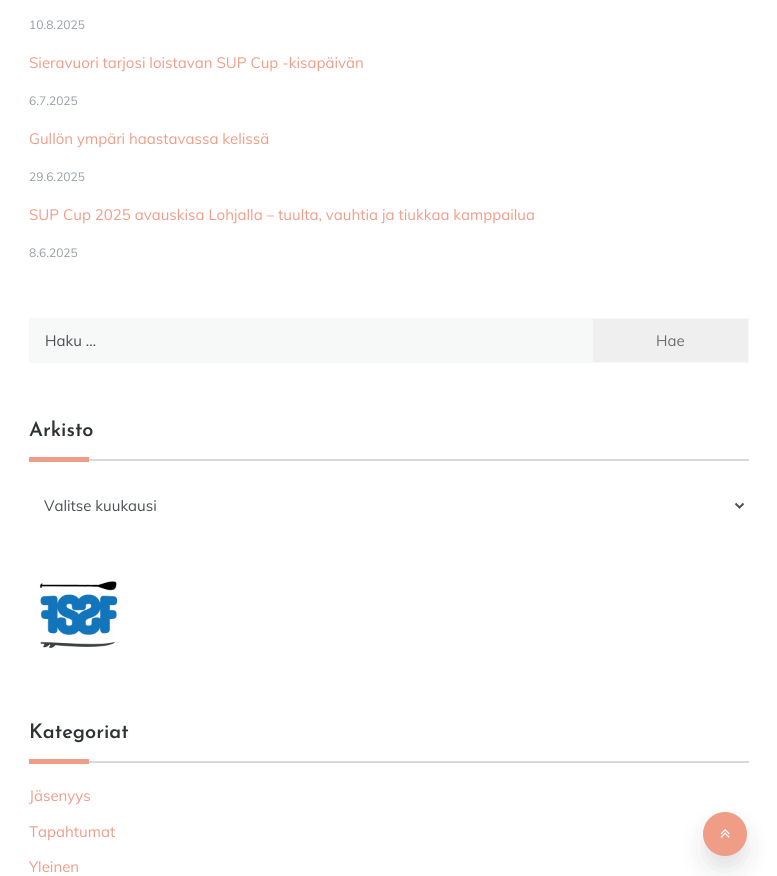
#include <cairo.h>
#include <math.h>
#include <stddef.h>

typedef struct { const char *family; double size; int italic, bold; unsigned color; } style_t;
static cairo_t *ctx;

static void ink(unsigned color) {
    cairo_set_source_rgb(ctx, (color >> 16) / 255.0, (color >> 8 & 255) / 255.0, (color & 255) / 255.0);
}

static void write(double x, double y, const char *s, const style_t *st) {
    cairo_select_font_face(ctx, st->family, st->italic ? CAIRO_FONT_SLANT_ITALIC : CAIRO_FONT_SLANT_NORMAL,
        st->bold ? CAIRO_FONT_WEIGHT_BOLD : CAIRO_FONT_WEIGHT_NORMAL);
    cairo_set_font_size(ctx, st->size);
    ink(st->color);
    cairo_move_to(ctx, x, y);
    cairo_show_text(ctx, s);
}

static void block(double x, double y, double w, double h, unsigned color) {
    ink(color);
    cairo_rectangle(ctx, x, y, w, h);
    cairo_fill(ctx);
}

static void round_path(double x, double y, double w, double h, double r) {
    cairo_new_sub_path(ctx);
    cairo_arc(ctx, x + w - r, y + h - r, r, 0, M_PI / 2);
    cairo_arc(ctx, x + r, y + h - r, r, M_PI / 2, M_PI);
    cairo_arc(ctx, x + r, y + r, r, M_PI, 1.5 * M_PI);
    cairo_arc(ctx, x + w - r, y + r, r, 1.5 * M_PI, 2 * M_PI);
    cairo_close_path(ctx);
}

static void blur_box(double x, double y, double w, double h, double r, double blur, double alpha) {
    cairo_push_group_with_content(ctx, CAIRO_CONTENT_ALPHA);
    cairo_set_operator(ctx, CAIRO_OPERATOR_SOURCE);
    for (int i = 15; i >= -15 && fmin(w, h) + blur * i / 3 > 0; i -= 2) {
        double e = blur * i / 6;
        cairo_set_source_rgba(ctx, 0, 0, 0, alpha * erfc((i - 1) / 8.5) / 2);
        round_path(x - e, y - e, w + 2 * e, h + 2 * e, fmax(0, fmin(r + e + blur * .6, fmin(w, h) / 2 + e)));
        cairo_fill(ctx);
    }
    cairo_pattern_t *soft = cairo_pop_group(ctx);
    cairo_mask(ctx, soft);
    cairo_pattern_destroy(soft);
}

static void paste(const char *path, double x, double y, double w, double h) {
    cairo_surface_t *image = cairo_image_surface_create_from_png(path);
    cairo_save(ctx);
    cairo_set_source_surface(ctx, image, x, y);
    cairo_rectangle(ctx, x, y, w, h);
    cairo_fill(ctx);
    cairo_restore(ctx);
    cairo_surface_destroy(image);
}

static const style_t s1 = {"Muli", 12, 0, 0, 0x989ea6};
static const style_t s2 = {"Muli", 15, 0, 0, 0xef9d87};
static const style_t s3 = {"Muli", 15, 0, 0, 0x4c4f53};
static const style_t s4 = {"Muli", 15, 0, 0, 0x6f6f6f};
static const style_t s5 = {"Josefin Sans SemiBold", 20, 0, 0, 0x2f3235};

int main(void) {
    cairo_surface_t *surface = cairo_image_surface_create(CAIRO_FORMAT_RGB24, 777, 876);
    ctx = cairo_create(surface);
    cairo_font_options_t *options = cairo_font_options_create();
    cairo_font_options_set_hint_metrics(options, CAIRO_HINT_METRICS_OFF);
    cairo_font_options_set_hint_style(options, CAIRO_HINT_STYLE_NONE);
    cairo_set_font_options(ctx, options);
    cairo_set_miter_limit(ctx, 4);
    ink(0xffffff);
    cairo_paint(ctx);
    write(29, 29, "10.8.2025", &s1);
    write(29, 68, "Sieravuori tarjosi loistavan SUP Cup -kisapäivän", &s2);
    write(29, 105, "6.7.2025", &s1);
    write(29, 144, "Gullön ympäri haastavassa kelissä", &s2);
    write(29, 181, "29.6.2025", &s1);
    write(29, 220, "SUP Cup 2025 avauskisa Lohjalla – tuulta, vauhtia ja tiukkaa kamppailua", &s2);
    write(29, 257, "8.6.2025", &s1);
    block(29, 318, 563, 45, 0xf7f8f8);
    write(45, 346, "Haku …", &s3);
    ink(0xefefef);
    cairo_rectangle(ctx, 592.5, 318.5, 156, 44);
    cairo_fill_preserve(ctx);
    ink(0xf7f8f8);
    cairo_set_line_width(ctx, 1);
    cairo_stroke(ctx);
    write(656, 346, "Hae", &s4);
    block(89, 459, 660, 2, 0xd9d9d9);
    write(29, 436, "Arkisto", &s5);
    block(29, 457, 60, 5, 0xef9d87);
    cairo_new_path(ctx);
    cairo_move_to(ctx, 735.5, 503.5);
    cairo_line_to(ctx, 739.5, 507.5);
    cairo_line_to(ctx, 743.5, 503.5);
    ink(0x4c4f53);
    cairo_set_line_width(ctx, 2);
    cairo_stroke(ctx);
    write(44, 511, "Valitse kuukausi", &s3);
    paste("pic1.png", 39, 581, 79, 68);
    block(89, 761, 660, 2, 0xd9d9d9);
    write(29, 738, "Kategoriat", &s5);
    block(29, 759, 60, 5, 0xef9d87);
    write(29, 801, "Jäsenyys", &s2);
    write(29, 837, "Tapahtumat", &s2);
    write(29, 872, "Yleinen", &s2);
    ink(0x0e1114);
    blur_box(707, 830, 36, 36, 18, 14, 0.15);
    ink(0xef9d87);
    cairo_arc(ctx, 725, 834, 22, 0, 2 * M_PI);
    cairo_fill(ctx);
    paste("pic2.png", 720, 829, 10, 9);
    cairo_surface_write_to_png(surface, "screenshot.png");
    cairo_font_options_destroy(options);
    cairo_destroy(ctx);
    cairo_surface_destroy(surface);
    return 0;
}
